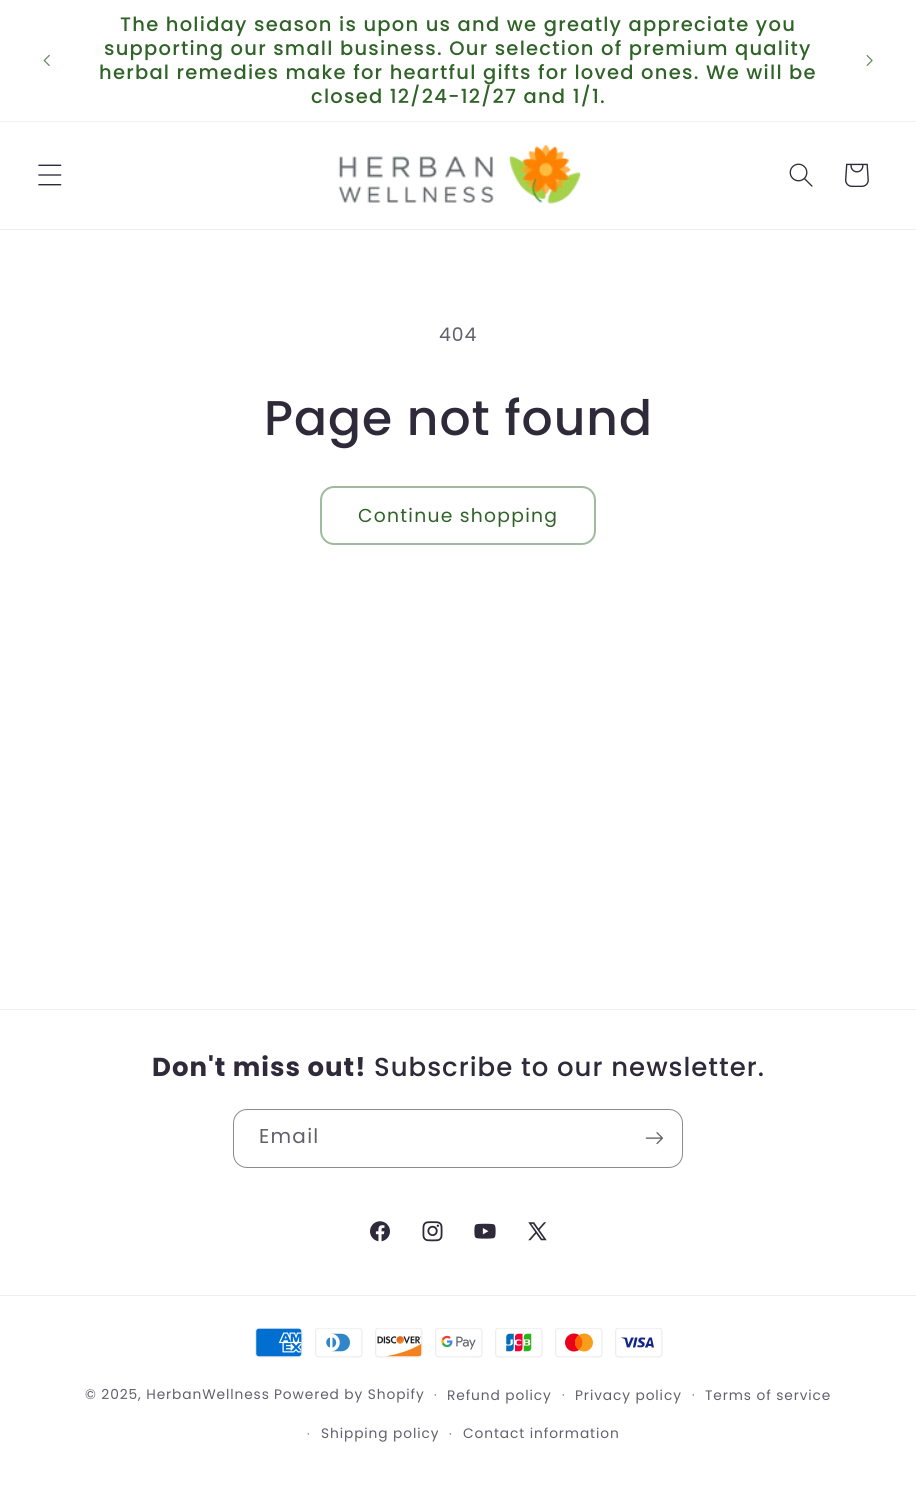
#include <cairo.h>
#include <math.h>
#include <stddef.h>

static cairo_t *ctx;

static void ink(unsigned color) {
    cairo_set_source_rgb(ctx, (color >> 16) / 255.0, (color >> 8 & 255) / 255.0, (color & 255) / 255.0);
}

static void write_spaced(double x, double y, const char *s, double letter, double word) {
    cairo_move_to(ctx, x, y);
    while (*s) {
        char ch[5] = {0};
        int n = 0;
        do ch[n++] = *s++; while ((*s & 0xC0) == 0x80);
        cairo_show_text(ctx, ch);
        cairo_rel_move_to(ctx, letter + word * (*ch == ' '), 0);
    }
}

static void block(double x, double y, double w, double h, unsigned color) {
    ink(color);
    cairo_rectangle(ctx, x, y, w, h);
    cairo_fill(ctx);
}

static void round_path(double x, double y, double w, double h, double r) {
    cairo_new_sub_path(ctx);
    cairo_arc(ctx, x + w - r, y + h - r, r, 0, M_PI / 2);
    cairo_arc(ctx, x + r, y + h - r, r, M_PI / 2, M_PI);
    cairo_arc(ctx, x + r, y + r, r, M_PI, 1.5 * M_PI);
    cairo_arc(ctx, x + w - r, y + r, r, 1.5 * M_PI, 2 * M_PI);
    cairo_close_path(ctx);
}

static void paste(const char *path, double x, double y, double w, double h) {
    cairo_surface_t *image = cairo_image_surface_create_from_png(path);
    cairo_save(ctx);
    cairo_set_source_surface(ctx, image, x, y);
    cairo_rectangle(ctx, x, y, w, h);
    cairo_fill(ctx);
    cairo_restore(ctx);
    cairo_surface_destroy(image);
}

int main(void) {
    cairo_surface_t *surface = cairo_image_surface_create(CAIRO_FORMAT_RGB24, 916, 1497);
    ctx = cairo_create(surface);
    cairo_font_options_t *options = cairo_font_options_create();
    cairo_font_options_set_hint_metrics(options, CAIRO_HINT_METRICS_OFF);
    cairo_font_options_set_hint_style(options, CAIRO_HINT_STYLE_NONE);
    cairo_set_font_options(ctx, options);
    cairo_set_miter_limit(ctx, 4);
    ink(0xffffff);
    cairo_paint(ctx);
    block(0, 121, 916, 1, 0xeef3ee);
    paste("pic1.png", 43, 54, 7, 12);
    cairo_select_font_face(ctx, "Poppins Medium", CAIRO_FONT_SLANT_NORMAL, CAIRO_FONT_WEIGHT_NORMAL);
    cairo_set_font_size(ctx, 19.5);
    ink(0x2f6327);
    write_spaced(120, 31, "The holiday season is upon us and we greatly appreciate you", 1.25, 0);
    write_spaced(104, 55, "supporting our small business. Our selection of premium quality", 1.25, 0);
    write_spaced(99, 79, "herbal remedies make for heartful gifts for loved ones. We will be", 1.25, 0);
    write_spaced(311, 103, "closed 12/24-12/27 and 1/1.", 1.25, 0);
    paste("pic2.png", 866, 54, 7, 12);
    block(0, 229, 916, 1, 0xeeeeef);
    paste("pic3.png", 38, 164, 24, 22);
    paste("pic4.png", 338, 144, 244, 60);
    paste("pic5.png", 789, 163, 24, 24);
    paste("pic6.png", 845, 163, 24, 24);
    cairo_select_font_face(ctx, "Poppins", CAIRO_FONT_SLANT_NORMAL, CAIRO_FONT_WEIGHT_NORMAL);
    cairo_set_font_size(ctx, 18.75);
    ink(0x625f6b);
    write_spaced(439, 341, "404", 1, 0);
    cairo_select_font_face(ctx, "Poppins Medium", CAIRO_FONT_SLANT_NORMAL, CAIRO_FONT_WEIGHT_NORMAL);
    cairo_set_font_size(ctx, 48.75);
    ink(0x2e2a39);
    write_spaced(264, 435, "Page not found", 1, 0);
    round_path(321, 487, 274, 57, 13);
    ink(0xa1b99e);
    cairo_stroke(ctx);
    cairo_select_font_face(ctx, "Poppins", CAIRO_FONT_SLANT_NORMAL, CAIRO_FONT_WEIGHT_NORMAL);
    cairo_set_font_size(ctx, 18.75);
    ink(0x2f6327);
    write_spaced(358, 522, "Continue shopping", 1.25, 0);
    block(0, 1009, 916, 1, 0xeeeeef);
    cairo_select_font_face(ctx, "Poppins", CAIRO_FONT_SLANT_NORMAL, CAIRO_FONT_WEIGHT_BOLD);
    cairo_set_font_size(ctx, 26);
    ink(0x2e2a39);
    write_spaced(152, 1076, "Don't miss out!", 1, 0);
    cairo_select_font_face(ctx, "Poppins Medium", CAIRO_FONT_SLANT_NORMAL, CAIRO_FONT_WEIGHT_NORMAL);
    write_spaced(374, 1076, "Subscribe to our newsletter.", 1, 0);
    round_path(233.5, 1109.5, 449, 58, 13.5);
    ink(0x8c8a92);
    cairo_set_line_width(ctx, 1);
    cairo_stroke(ctx);
    cairo_select_font_face(ctx, "Poppins", CAIRO_FONT_SLANT_NORMAL, CAIRO_FONT_WEIGHT_NORMAL);
    cairo_set_font_size(ctx, 20);
    ink(0x625f6b);
    write_spaced(259, 1143, "Email", 1.25, 0);
    paste("pic7.png", 645, 1132, 18, 13);
    paste("pic8.png", 370, 1221, 20, 21);
    paste("pic9.png", 422, 1221, 21, 21);
    paste("pic10.png", 474, 1223, 22, 16);
    paste("pic11.png", 528, 1222, 19, 19);
    block(0, 1295, 916, 1, 0xeeeeef);
    paste("pic12.png", 255, 1328, 48, 30);
    paste("pic13.png", 315, 1328, 48, 30);
    paste("pic14.png", 375, 1328, 48, 30);
    paste("pic15.png", 435, 1328, 48, 30);
    paste("pic16.png", 495, 1328, 48, 30);
    paste("pic17.png", 555, 1328, 48, 30);
    paste("pic18.png", 615, 1328, 48, 30);
    cairo_set_font_size(ctx, 13.75);
    ink(0x625f6b);
    write_spaced(85, 1399, "© 2025, HerbanWellness", 0.9, 0);
    write_spaced(274, 1399, "Powered by Shopify", 0.9, 0);
    cairo_set_font_size(ctx, 12);
    write_spaced(434, 1399, "·", 0.9, 0);
    cairo_set_font_size(ctx, 13.75);
    write_spaced(447, 1400, "Refund policy", 0.9, 0);
    cairo_set_font_size(ctx, 12);
    write_spaced(562, 1399, "·", 0.9, 0);
    cairo_set_font_size(ctx, 13.75);
    write_spaced(575, 1400, "Privacy policy", 0.9, 0);
    cairo_set_font_size(ctx, 12);
    write_spaced(692, 1399, "·", 0.9, 0);
    cairo_set_font_size(ctx, 13.75);
    write_spaced(705, 1400, "Terms of service", 0.9, 0);
    cairo_set_font_size(ctx, 12);
    write_spaced(307, 1438, "·", 0.9, 0);
    cairo_set_font_size(ctx, 13.75);
    write_spaced(321, 1438, "Shipping policy", 0.9, 0);
    cairo_set_font_size(ctx, 12);
    write_spaced(449, 1438, "·", 0.9, 0);
    cairo_set_font_size(ctx, 13.75);
    write_spaced(463, 1438, "Contact information", 0.9, 0);
    cairo_surface_write_to_png(surface, "screenshot.png");
    cairo_font_options_destroy(options);
    cairo_destroy(ctx);
    cairo_surface_destroy(surface);
    return 0;
}
